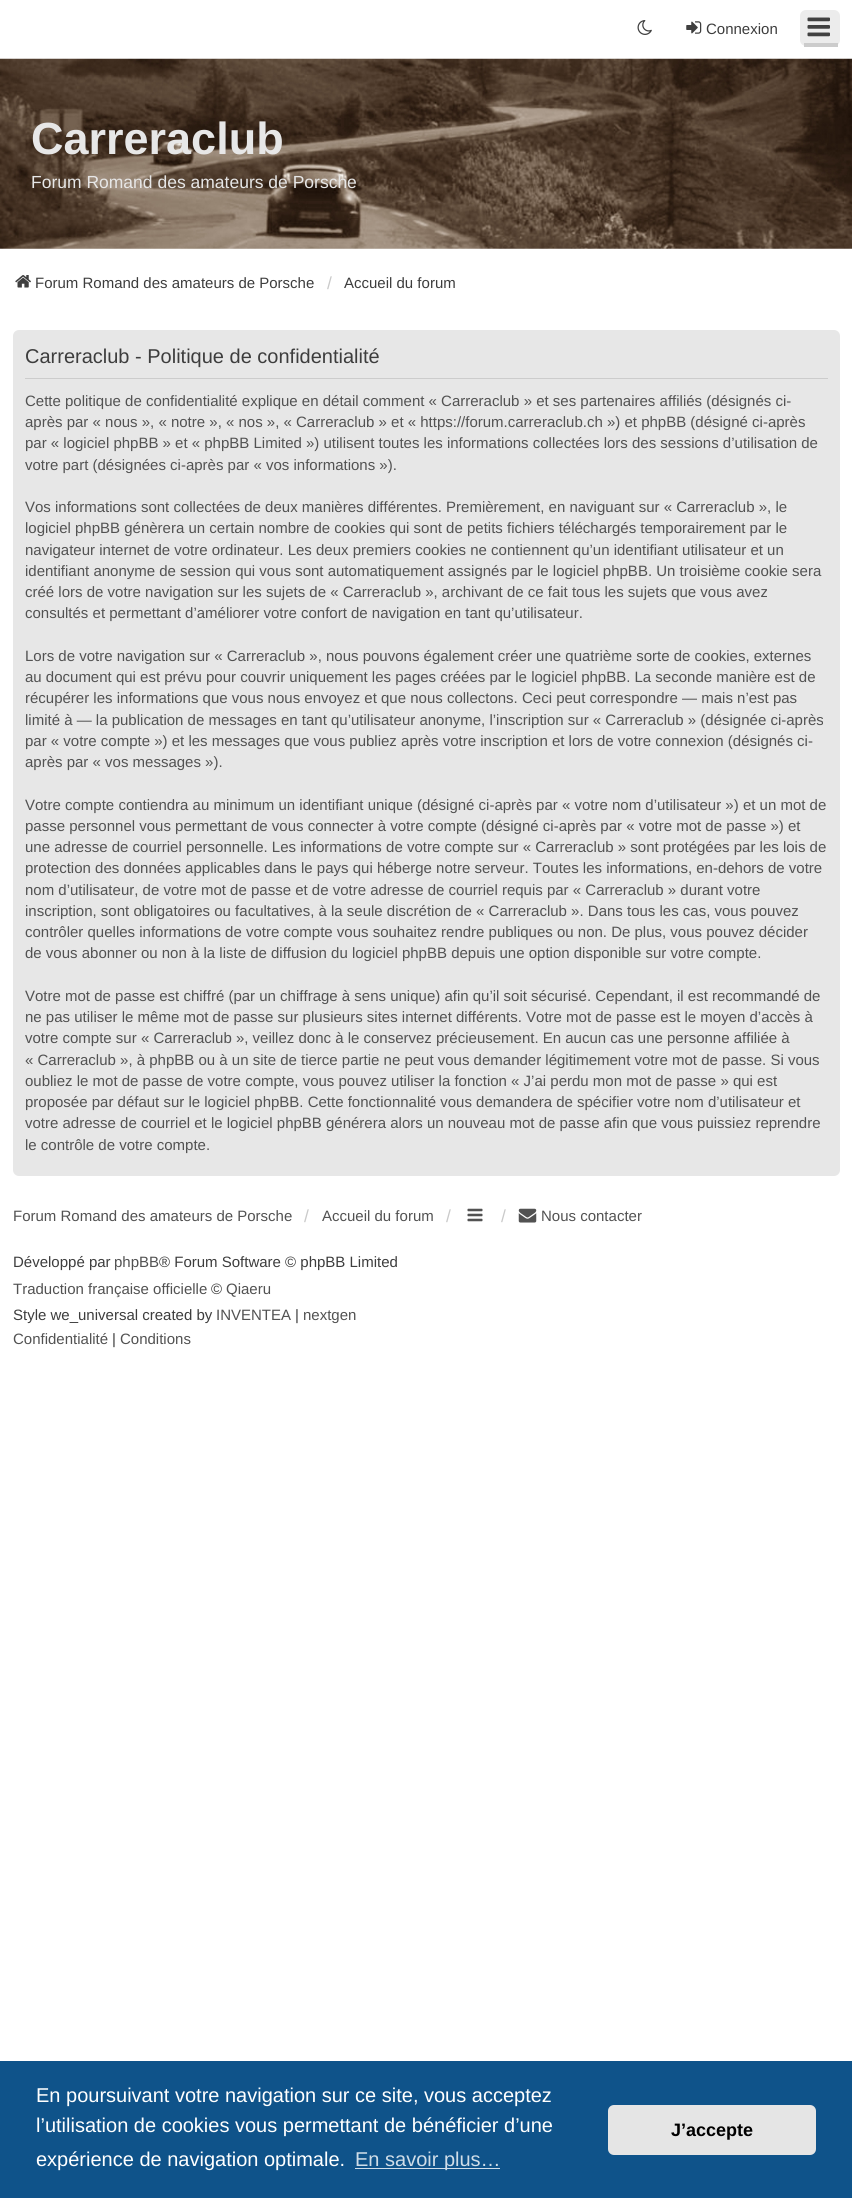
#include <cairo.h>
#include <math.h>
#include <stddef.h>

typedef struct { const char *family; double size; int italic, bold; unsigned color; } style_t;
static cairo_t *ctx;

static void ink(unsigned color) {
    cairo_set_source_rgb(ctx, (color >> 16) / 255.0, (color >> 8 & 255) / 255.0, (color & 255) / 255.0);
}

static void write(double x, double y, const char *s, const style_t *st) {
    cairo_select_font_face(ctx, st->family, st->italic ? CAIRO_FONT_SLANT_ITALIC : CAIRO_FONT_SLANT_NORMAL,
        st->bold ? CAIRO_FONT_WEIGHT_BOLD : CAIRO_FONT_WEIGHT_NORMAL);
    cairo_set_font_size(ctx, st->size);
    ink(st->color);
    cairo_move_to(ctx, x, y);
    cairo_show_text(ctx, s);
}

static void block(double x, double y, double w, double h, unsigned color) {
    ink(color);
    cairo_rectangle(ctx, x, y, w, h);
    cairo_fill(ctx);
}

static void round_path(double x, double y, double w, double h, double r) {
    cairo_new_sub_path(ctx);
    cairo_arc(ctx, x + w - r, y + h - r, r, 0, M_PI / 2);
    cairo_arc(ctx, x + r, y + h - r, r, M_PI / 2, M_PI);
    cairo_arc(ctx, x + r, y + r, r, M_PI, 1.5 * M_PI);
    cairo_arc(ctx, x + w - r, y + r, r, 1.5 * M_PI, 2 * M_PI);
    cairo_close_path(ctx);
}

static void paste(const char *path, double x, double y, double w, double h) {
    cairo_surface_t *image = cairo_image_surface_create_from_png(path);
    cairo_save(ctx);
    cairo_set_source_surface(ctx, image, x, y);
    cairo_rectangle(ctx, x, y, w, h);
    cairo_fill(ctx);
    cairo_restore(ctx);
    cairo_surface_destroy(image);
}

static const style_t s1 = {"Liberation Sans", 15, 0, 0, 0x3d3d3d};
static const style_t s2 = {"Liberation Sans", 45, 0, 1, 0xe7e7e7};
static const style_t s3 = {"Liberation Sans", 17.5, 0, 0, 0xe7e7e7};
static const style_t s4 = {"Liberation Sans", 17.5, 0, 0, 0xcacaca};
static const style_t s5 = {"Liberation Sans", 20, 0, 0, 0x3d3d3d};
static const style_t s6 = {"Liberation Sans", 15, 0, 0, 0x525252};
static const style_t s7 = {"Liberation Sans", 20, 0, 0, 0xffffff};
static const style_t s8 = {"Liberation Sans", 20, 0, 0, 0xcfdde8};
static const style_t s9 = {"Liberation Sans", 18, 0, 1, 0x000000};

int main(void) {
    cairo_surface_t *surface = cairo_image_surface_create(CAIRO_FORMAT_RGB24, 852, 2198);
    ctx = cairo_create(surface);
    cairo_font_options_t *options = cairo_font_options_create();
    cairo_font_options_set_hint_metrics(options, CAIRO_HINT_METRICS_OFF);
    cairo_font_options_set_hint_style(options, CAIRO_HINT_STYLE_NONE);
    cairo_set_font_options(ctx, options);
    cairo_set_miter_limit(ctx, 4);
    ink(0xffffff);
    cairo_paint(ctx);
    paste("pic1.png", 637, 20, 15, 15);
    paste("pic2.png", 686, 21, 16, 13);
    write(706, 34, "Connexion", &s1);
    ink(0xececec);
    round_path(800, 10, 40, 36, 6);
    cairo_fill(ctx);
    block(804, 43, 34, 4, 0xcccccc);
    paste("pic3.png", 807, 17, 23, 20);
    paste("pic4.png", 0, 58, 852, 191);
    write(31, 154, "Carreraclub", &s2);
    write(31, 188, "Forum Romand des amateurs de Porsche", &s3);
    paste("pic5.png", 15, 275, 16, 13);
    write(35, 288, "Forum Romand des amateurs de Porsche", &s1);
    write(327, 289, "/", &s4);
    write(344, 288, "Accueil du forum", &s1);
    ink(0xe7e7e7);
    round_path(13, 330, 827, 846, 6);
    cairo_fill(ctx);
    block(25, 378, 803, 1, 0xcccccc);
    write(25, 363, "Carreraclub - Politique de confidentialité", &s5);
    write(25, 406, "Cette politique de confidentialité explique en détail comment « Carreraclub » et ses partenaires affiliés (désignés ci-", &s6);
    write(25, 427, "après par « nous », « notre », « nos », « Carreraclub » et « https://forum.carreraclub.ch ») et phpBB (désigné ci-après", &s6);
    write(25, 448, "par « logiciel phpBB » et « phpBB Limited ») utilisent toutes les informations collectées lors des sessions d’utilisation de", &s6);
    write(25, 470, "votre part (désignées ci-après par « vos informations »).", &s6);
    write(25, 512, "Vos informations sont collectées de deux manières différentes. Premièrement, en naviguant sur « Carreraclub », le", &s6);
    write(25, 533, "logiciel phpBB génèrera un certain nombre de cookies qui sont de petits fichiers téléchargés temporairement par le", &s6);
    write(25, 555, "navigateur internet de votre ordinateur. Les deux premiers cookies ne contiennent qu’un identifiant utilisateur et un", &s6);
    write(25, 576, "identifiant anonyme de session qui vous sont automatiquement assignés par le logiciel phpBB. Un troisième cookie sera", &s6);
    write(25, 597, "créé lors de votre navigation sur les sujets de « Carreraclub », archivant de ce fait tous les sujets que vous avez", &s6);
    write(25, 618, "consultés et permettant d’améliorer votre confort de navigation en tant qu’utilisateur.", &s6);
    write(25, 661, "Lors de votre navigation sur « Carreraclub », nous pouvons également créer une quatrième sorte de cookies, externes", &s6);
    write(25, 682, "au document qui est prévu pour couvrir uniquement les pages créées par le logiciel phpBB. La seconde manière est de", &s6);
    write(25, 703, "récupérer les informations que vous nous envoyez et que nous collectons. Ceci peut correspondre — mais n’est pas", &s6);
    write(25, 725, "limité à — la publication de messages en tant qu’utilisateur anonyme, l’inscription sur « Carreraclub » (désignée ci-après", &s6);
    write(25, 746, "par « votre compte ») et les messages que vous publiez après votre inscription et lors de votre connexion (désignés ci-", &s6);
    write(25, 767, "après par « vos messages »).", &s6);
    write(25, 810, "Votre compte contiendra au minimum un identifiant unique (désigné ci-après par « votre nom d’utilisateur ») et un mot de", &s6);
    write(25, 831, "passe personnel vous permettant de vous connecter à votre compte (désigné ci-après par « votre mot de passe ») et", &s6);
    write(25, 852, "une adresse de courriel personnelle. Les informations de votre compte sur « Carreraclub » sont protégées par les lois de", &s6);
    write(25, 873, "protection des données applicables dans le pays qui héberge notre serveur. Toutes les informations, en-dehors de votre", &s6);
    write(25, 895, "nom d’utilisateur, de votre mot de passe et de votre adresse de courriel requis par « Carreraclub » durant votre", &s6);
    write(25, 916, "inscription, sont obligatoires ou facultatives, à la seule discrétion de « Carreraclub ». Dans tous les cas, vous pouvez", &s6);
    write(25, 937, "contrôler quelles informations de votre compte vous souhaitez rendre publiques ou non. De plus, vous pouvez décider", &s6);
    write(25, 958, "de vous abonner ou non à la liste de diffusion du logiciel phpBB depuis une option disponible sur votre compte.", &s6);
    write(25, 1001, "Votre mot de passe est chiffré (par un chiffrage à sens unique) afin qu’il soit sécurisé. Cependant, il est recommandé de", &s6);
    write(25, 1022, "ne pas utiliser le même mot de passe sur plusieurs sites internet différents. Votre mot de passe est le moyen d’accès à", &s6);
    write(25, 1043, "votre compte sur « Carreraclub », veillez donc à le conservez précieusement. En aucun cas une personne affiliée à", &s6);
    write(25, 1065, "« Carreraclub », à phpBB ou à un site de tierce partie ne peut vous demander légitimement votre mot de passe. Si vous", &s6);
    write(25, 1086, "oubliez le mot de passe de votre compte, vous pouvez utiliser la fonction « J’ai perdu mon mot de passe » qui est", &s6);
    write(25, 1107, "proposée par défaut sur le logiciel phpBB. Cette fonctionnalité vous demandera de spécifier votre nom d’utilisateur et", &s6);
    write(25, 1128, "votre adresse de courriel et le logiciel phpBB générera alors un nouveau mot de passe afin que vous puissiez reprendre", &s6);
    write(25, 1150, "le contrôle de votre compte.", &s6);
    write(13, 1221, "Forum Romand des amateurs de Porsche", &s6);
    write(304, 1222, "/", &s4);
    write(322, 1221, "Accueil du forum", &s6);
    write(446, 1222, "/", &s4);
    paste("pic6.png", 467, 1208, 16, 14);
    write(501, 1222, "/", &s4);
    paste("pic7.png", 518, 1208, 19, 15);
    write(541, 1221, "Nous contacter", &s6);
    write(13, 1267, "Développé par", &s1);
    write(114, 1267, "phpBB", &s6);
    write(159, 1267, "® Forum Software © phpBB Limited", &s1);
    write(13, 1294, "Traduction française officielle", &s6);
    write(211, 1294, "©", &s1);
    write(226, 1294, "Qiaeru", &s6);
    write(13, 1320, "Style we_universal created by", &s1);
    write(216, 1320, "INVENTEA", &s6);
    write(295, 1320, "|", &s1);
    write(303, 1320, "nextgen", &s6);
    write(13, 1344, "Confidentialité", &s6);
    write(112, 1344, "|", &s1);
    write(120, 1344, "Conditions", &s6);
    block(0, 2061, 852, 137, 0x0f538a);
    write(36, 2102, "En poursuivant votre navigation sur ce site, vous acceptez", &s7);
    write(36, 2132, "l’utilisation de cookies vous permettant de bénéficier d’une", &s7);
    write(36, 2166, "expérience de navigation optimale.", &s7);
    block(355, 2168, 145, 1, 0xcfdde8);
    write(355, 2166, "En savoir plus…", &s8);
    ink(0xe5e5e5);
    round_path(608, 2105, 208, 50, 6);
    cairo_fill(ctx);
    write(671, 2136, "J’accepte", &s9);
    cairo_surface_write_to_png(surface, "screenshot.png");
    cairo_font_options_destroy(options);
    cairo_destroy(ctx);
    cairo_surface_destroy(surface);
    return 0;
}
